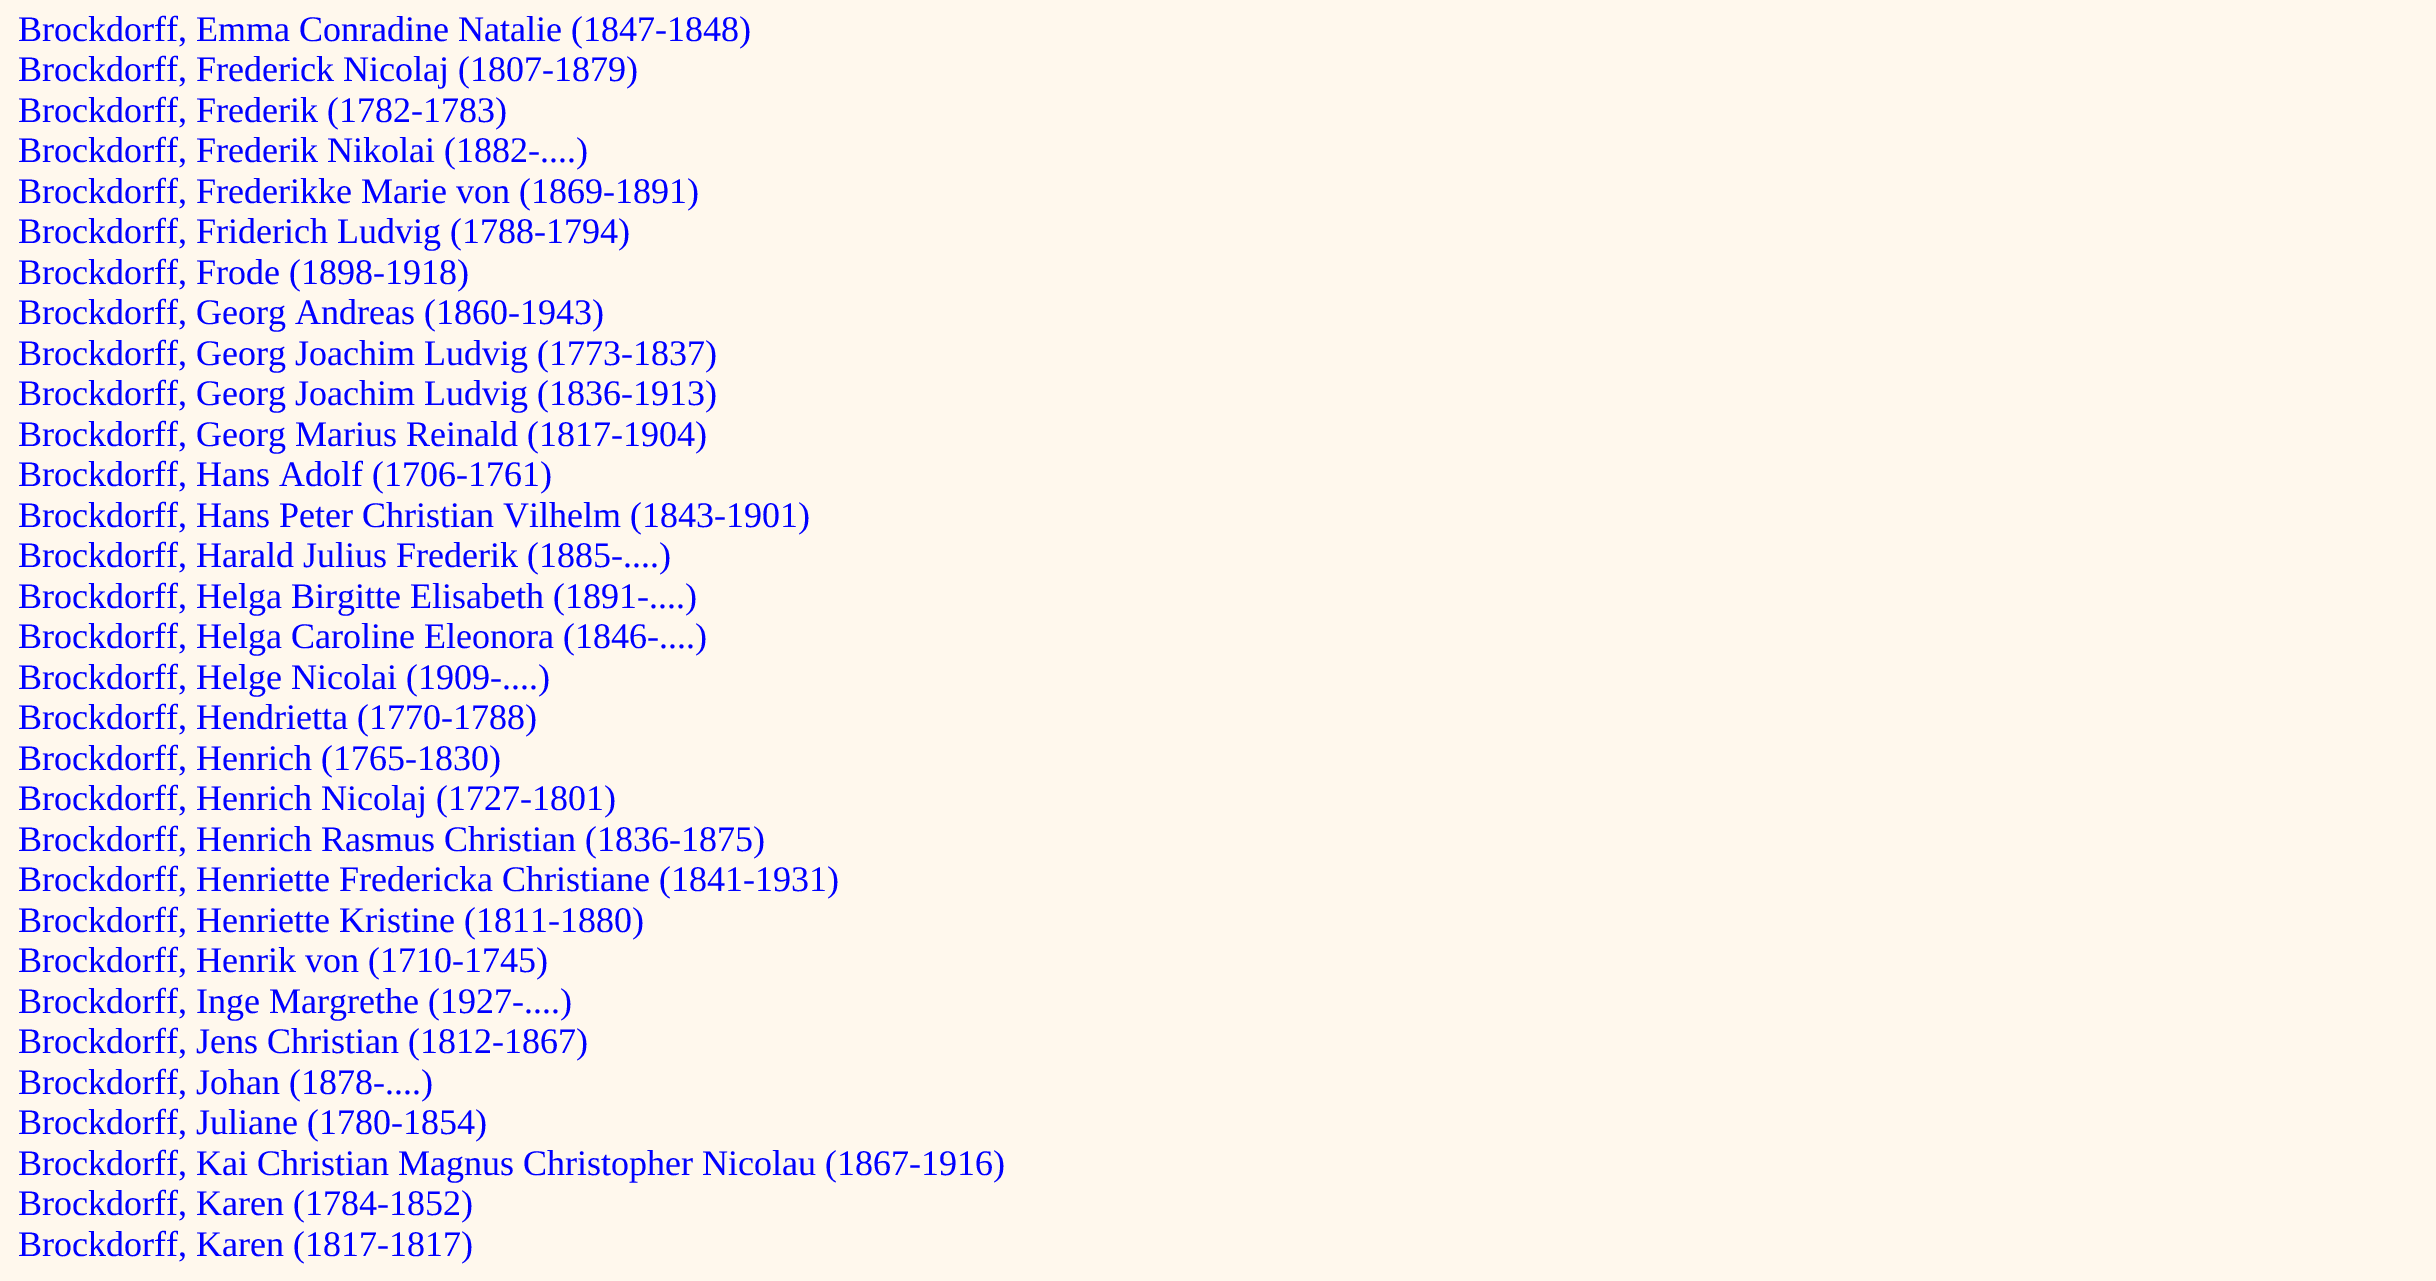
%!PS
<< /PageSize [2436 1281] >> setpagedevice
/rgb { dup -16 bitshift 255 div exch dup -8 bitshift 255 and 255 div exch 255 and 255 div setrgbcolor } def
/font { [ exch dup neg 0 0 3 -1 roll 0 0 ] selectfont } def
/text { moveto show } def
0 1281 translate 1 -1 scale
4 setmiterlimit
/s1 { /LiberationSerif-Regular 36 font 16#0000FF rgb } def
16#FFF8ED rgb
0 0 2436 1281 rectfill
s1
(Brockdorff, Emma Conradine Natalie \(1847-1848\)) 18 41 text
(Brockdorff, Frederick Nicolaj \(1807-1879\)) 18 81 text
(Brockdorff, Frederik \(1782-1783\)) 18 122 text
(Brockdorff, Frederik Nikolai \(1882-....\)) 18 162 text
(Brockdorff, Frederikke Marie von \(1869-1891\)) 18 203 text
(Brockdorff, Friderich Ludvig \(1788-1794\)) 18 243 text
(Brockdorff, Frode \(1898-1918\)) 18 284 text
(Brockdorff, Georg Andreas \(1860-1943\)) 18 324 text
(Brockdorff, Georg Joachim Ludvig \(1773-1837\)) 18 365 text
(Brockdorff, Georg Joachim Ludvig \(1836-1913\)) 18 405 text
(Brockdorff, Georg Marius Reinald \(1817-1904\)) 18 446 text
(Brockdorff, Hans Adolf \(1706-1761\)) 18 486 text
(Brockdorff, Hans Peter Christian Vilhelm \(1843-1901\)) 18 527 text
(Brockdorff, Harald Julius Frederik \(1885-....\)) 18 567 text
(Brockdorff, Helga Birgitte Elisabeth \(1891-....\)) 18 608 text
(Brockdorff, Helga Caroline Eleonora \(1846-....\)) 18 648 text
(Brockdorff, Helge Nicolai \(1909-....\)) 18 689 text
(Brockdorff, Hendrietta \(1770-1788\)) 18 729 text
(Brockdorff, Henrich \(1765-1830\)) 18 770 text
(Brockdorff, Henrich Nicolaj \(1727-1801\)) 18 810 text
(Brockdorff, Henrich Rasmus Christian \(1836-1875\)) 18 851 text
(Brockdorff, Henriette Fredericka Christiane \(1841-1931\)) 18 891 text
(Brockdorff, Henriette Kristine \(1811-1880\)) 18 932 text
(Brockdorff, Henrik von \(1710-1745\)) 18 972 text
(Brockdorff, Inge Margrethe \(1927-....\)) 18 1013 text
(Brockdorff, Jens Christian \(1812-1867\)) 18 1053 text
(Brockdorff, Johan \(1878-....\)) 18 1094 text
(Brockdorff, Juliane \(1780-1854\)) 18 1134 text
(Brockdorff, Kai Christian Magnus Christopher Nicolau \(1867-1916\)) 18 1175 text
(Brockdorff, Karen \(1784-1852\)) 18 1215 text
(Brockdorff, Karen \(1817-1817\)) 18 1256 text
showpage
